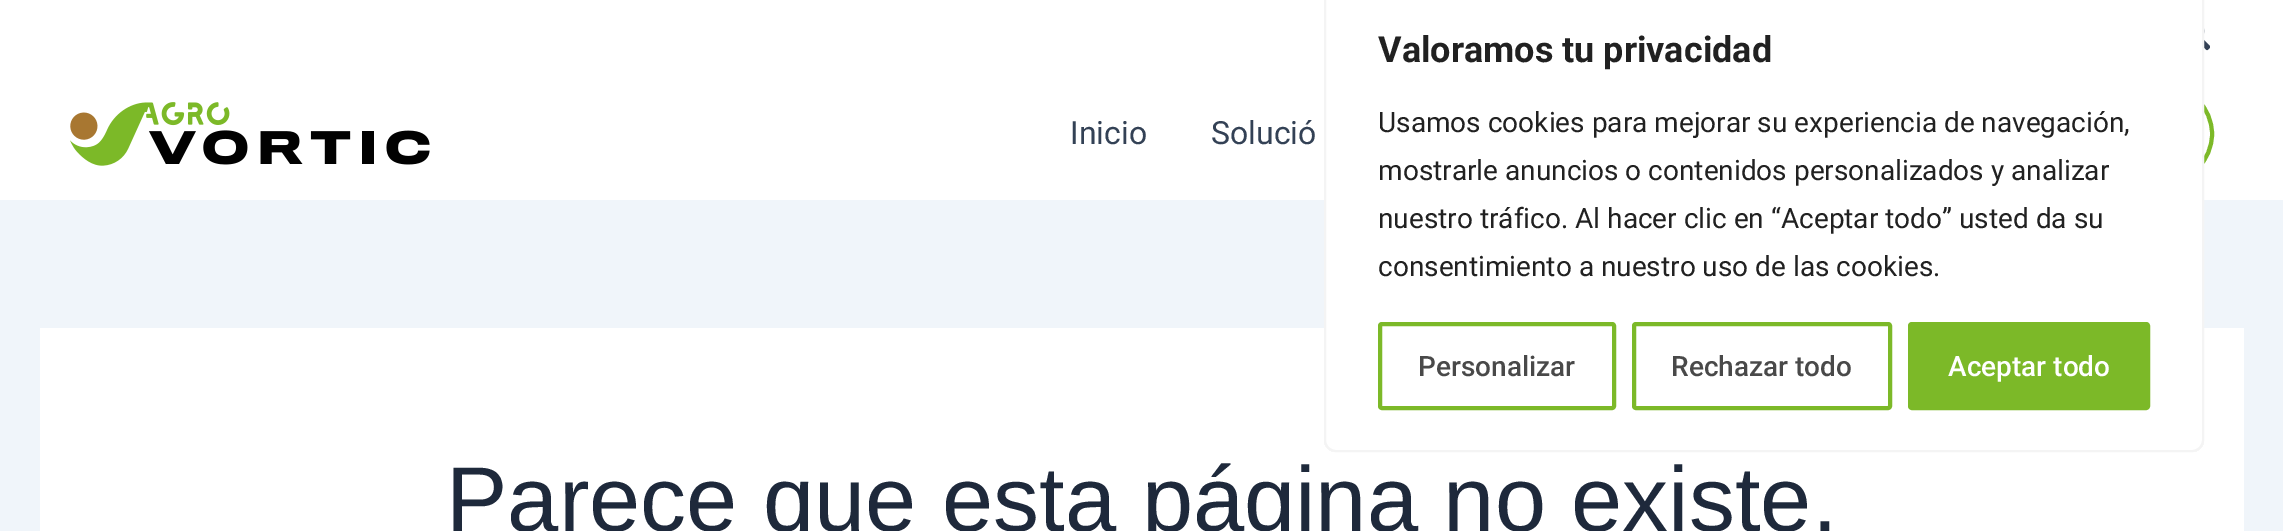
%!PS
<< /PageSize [2283 531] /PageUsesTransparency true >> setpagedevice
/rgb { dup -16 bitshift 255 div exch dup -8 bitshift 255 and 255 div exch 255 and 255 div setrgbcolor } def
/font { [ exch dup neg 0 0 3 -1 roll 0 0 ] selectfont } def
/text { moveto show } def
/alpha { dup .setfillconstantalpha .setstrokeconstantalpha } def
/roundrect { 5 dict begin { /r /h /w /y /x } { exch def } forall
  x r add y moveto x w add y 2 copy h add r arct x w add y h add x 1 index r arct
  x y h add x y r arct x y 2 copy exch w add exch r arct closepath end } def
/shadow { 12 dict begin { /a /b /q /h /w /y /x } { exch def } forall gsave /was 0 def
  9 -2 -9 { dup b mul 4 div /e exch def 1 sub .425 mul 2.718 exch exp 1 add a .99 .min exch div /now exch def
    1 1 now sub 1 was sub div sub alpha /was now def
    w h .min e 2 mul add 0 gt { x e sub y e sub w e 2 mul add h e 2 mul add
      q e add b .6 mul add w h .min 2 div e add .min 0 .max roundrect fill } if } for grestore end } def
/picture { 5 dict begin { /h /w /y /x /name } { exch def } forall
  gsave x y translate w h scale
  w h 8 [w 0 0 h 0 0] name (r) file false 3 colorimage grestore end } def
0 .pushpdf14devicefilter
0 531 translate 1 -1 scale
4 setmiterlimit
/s1 { /Roboto-Bold 36 font 16#212121 rgb } def
/s2 { /Roboto-Regular 28 font 16#212121 rgb } def
/s3 { /Roboto-Medium 28 font 16#494949 rgb } def
/s4 { /Roboto-Medium 28 font 16#FFFFFF rgb } def
/s5 { /Roboto-Regular 32 font 16#334155 rgb } def
/s6 { /LiberationSans-Regular 92 font 16#1E293B rgb } def
16#F0F5FA rgb
0 0 2283 531 rectfill
16#FFFFFF rgb
0 0 2283 200 rectfill
(pic1.raw) 2204 28 6 23 picture
16#7CB928 rgb
4 setlinewidth
1982 86 230 96 48 roundrect stroke
16#FFFFFF rgb
40 328 2204 203 rectfill
gsave
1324 -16 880 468 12 roundrect clip newpath
16#ACABAB rgb
1324 -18 880 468 12 10 0.3 shadow
grestore
1325 -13 878 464 11 roundrect gsave fill grestore
16#F4F4F4 rgb
2 setlinewidth
stroke
s1
(Valoramos tu privacidad) 1378 62 text
s2
(Usamos cookies para mejorar su experiencia de navegación,) 1378 132 text
(mostrarle anuncios o contenidos personalizados y analizar) 1378 180 text
(nuestro tráfico. Al hacer clic en “Aceptar todo” usted da su) 1378 228 text
(consentimiento a nuestro uso de las cookies.) 1378 276 text
16#7CB928 rgb
4 setlinewidth
1380 324 234 84 2 roundrect stroke
s3
(Personalizar) 1418 376 text
16#7CB928 rgb
1634 324 256 84 2 roundrect stroke
s3
(Rechazar todo) 1671 376 text
16#7CB928 rgb
1910 324 238 84 2 roundrect gsave fill grestore
stroke
s4
(Aceptar todo) 1948 376 text
(pic2.raw) 70 102 360 64 picture
s5
(Inicio) 1070 144 text
(Solució) 1211 144 text
s6
(Parece que esta página no existe.) 446 531 text
.poppdf14devicefilter showpage
